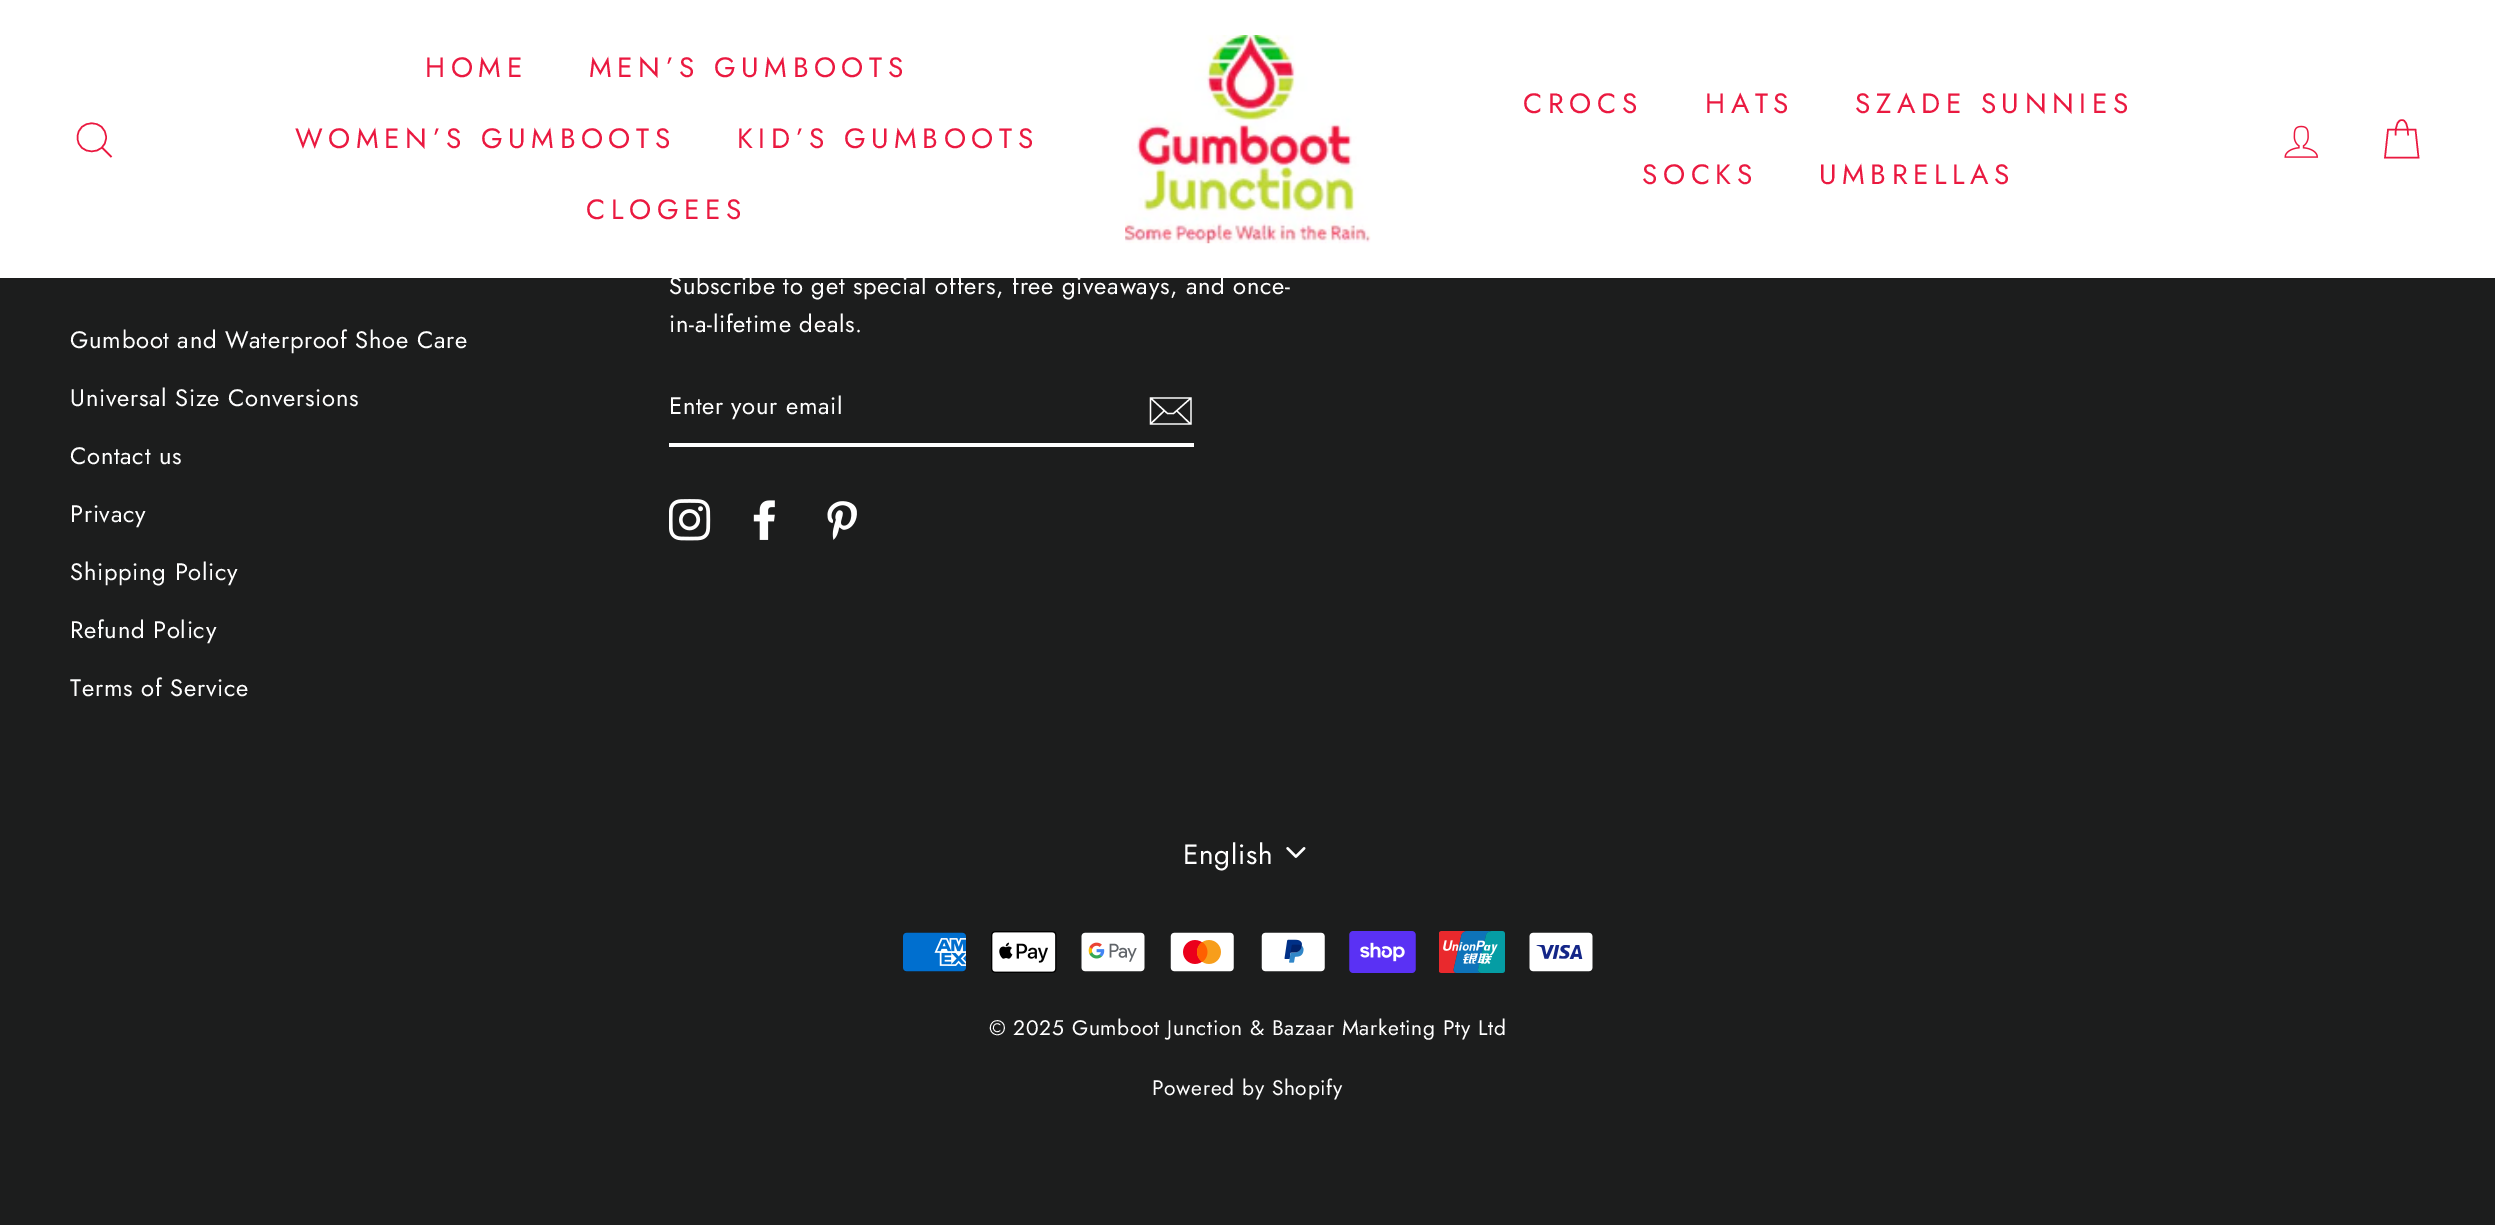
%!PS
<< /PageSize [2495 1225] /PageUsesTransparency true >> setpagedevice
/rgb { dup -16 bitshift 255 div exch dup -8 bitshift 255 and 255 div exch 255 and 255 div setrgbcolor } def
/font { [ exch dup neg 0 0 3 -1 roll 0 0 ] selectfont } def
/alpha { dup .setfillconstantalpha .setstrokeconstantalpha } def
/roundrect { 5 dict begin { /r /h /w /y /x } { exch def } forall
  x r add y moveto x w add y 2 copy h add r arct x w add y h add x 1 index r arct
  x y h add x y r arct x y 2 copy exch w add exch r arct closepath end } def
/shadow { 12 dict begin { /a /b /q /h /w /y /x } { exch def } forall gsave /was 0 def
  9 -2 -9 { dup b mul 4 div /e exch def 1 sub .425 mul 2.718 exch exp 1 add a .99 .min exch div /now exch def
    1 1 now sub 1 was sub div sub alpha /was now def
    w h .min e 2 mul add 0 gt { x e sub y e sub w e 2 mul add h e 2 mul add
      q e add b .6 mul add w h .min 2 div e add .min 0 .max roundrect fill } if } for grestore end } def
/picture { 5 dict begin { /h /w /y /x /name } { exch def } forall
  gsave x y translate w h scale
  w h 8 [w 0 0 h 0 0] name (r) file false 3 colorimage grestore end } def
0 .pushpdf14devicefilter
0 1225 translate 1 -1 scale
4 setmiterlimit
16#1C1D1D rgb
0 0 2495 1225 rectfill
16#000000 rgb
0 0 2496 278 0 1 0.2 shadow
16#FFFFFF rgb
0 0 2495 278 rectfill
16#EA1940 rgb
1.5 setlinewidth
106 137.5 moveto 106 156 77.5 156 77.5 137.5 curveto 77.5 118.5 106 118.5 106 137.5 curveto closepath 111.5 157 moveto 102 147.5 lineto stroke
/Jost-Regular 28 font
425 77 moveto 5.6 0 (HOME) ashow
589 77 moveto 5.6 0 (MEN’S GUMBOOTS) ashow
295 148 moveto 5.6 0 (WOMEN’S GUMBOOTS) ashow
737 148 moveto 5.6 0 (KID’S GUMBOOTS) ashow
586 219 moveto 5.6 0 (CLOGEES) ashow
(pic1.raw) 1125 35 246 209 picture
1523 113 moveto 5.6 0 (CROCS) ashow
1705 113 moveto 5.6 0 (HATS) ashow
1855 113 moveto 5.6 0 (SZADE SUNNIES) ashow
1642 184 moveto 5.6 0 (SOCKS) ashow
1819 184 moveto 5.6 0 (UMBRELLAS) ashow
(pic2.raw) 2284 125 35 33 picture
2395.5 135.5 moveto 2395.5 123.5 2398.5 120 2402 120 curveto 2405 120 2408 123.5 2408 135.5 curveto 2388 129.5 moveto 2415.5 129.5 lineto 2418.5 157.5 lineto 2385 157.5 lineto closepath stroke
/Jost-Regular 23.8 font
16#FFFFFF rgb
70 348 moveto 0.7 0 (Gumboot and Waterproof Shoe Care) ashow
70 406 moveto 0.7 0 (Universal Size Conversions) ashow
70 464 moveto 0.7 0 (Contact us) ashow
70 522 moveto 0.7 0 (Privacy) ashow
70 580 moveto 0.7 0 (Shipping Policy) ashow
70 638 moveto 0.7 0 (Refund Policy) ashow
70 696 moveto 0.7 0 (Terms of Service) ashow
669 294 moveto 0.7 0 (Subscribe to get special offers, free giveaways, and once-) ashow
669 332 moveto 0.7 0 (in-a-lifetime deals.) ashow
669 443 525 4 rectfill
669 414 moveto 0.6 0 (Enter your email) ashow
1.3 setlinewidth
1191 424 moveto 1150.5 424 lineto 1150.5 398 lineto 1191 398 lineto closepath 1150.5 398 moveto 1167.5 413.5 lineto 1173.5 413.5 lineto 1191 398 lineto 1164 411 moveto 1151 423.5 lineto 1190.5 424 moveto 1177 411 lineto stroke
(pic3.raw) 669 499 42 42 picture
(pic4.raw) 753 500 22 40 picture
(pic5.raw) 827 501 30 39 picture
(pic6.raw) 1286 847 20 11 picture
/Jost-Regular 28 font
1183 864 moveto 0.7 0 (English) ashow
(pic7.raw) 903 932 63 40 picture
(pic8.raw) 991 931 66 42 picture
(pic9.raw) 1081 932 64 40 picture
(pic10.raw) 1170 932 64 40 picture
(pic11.raw) 1261 932 64 40 picture
(pic12.raw) 1349 931 67 42 picture
(pic13.raw) 1439 931 66 42 picture
(pic14.raw) 1529 932 64 40 picture
/Jost-Regular 21 font
989 1035 moveto 0.7 0 (© 2025 Gumboot Junction & Bazaar Marketing Pty Ltd) ashow
1152 1095 moveto 0.7 0 (Powered by Shopify) ashow
.poppdf14devicefilter showpage
